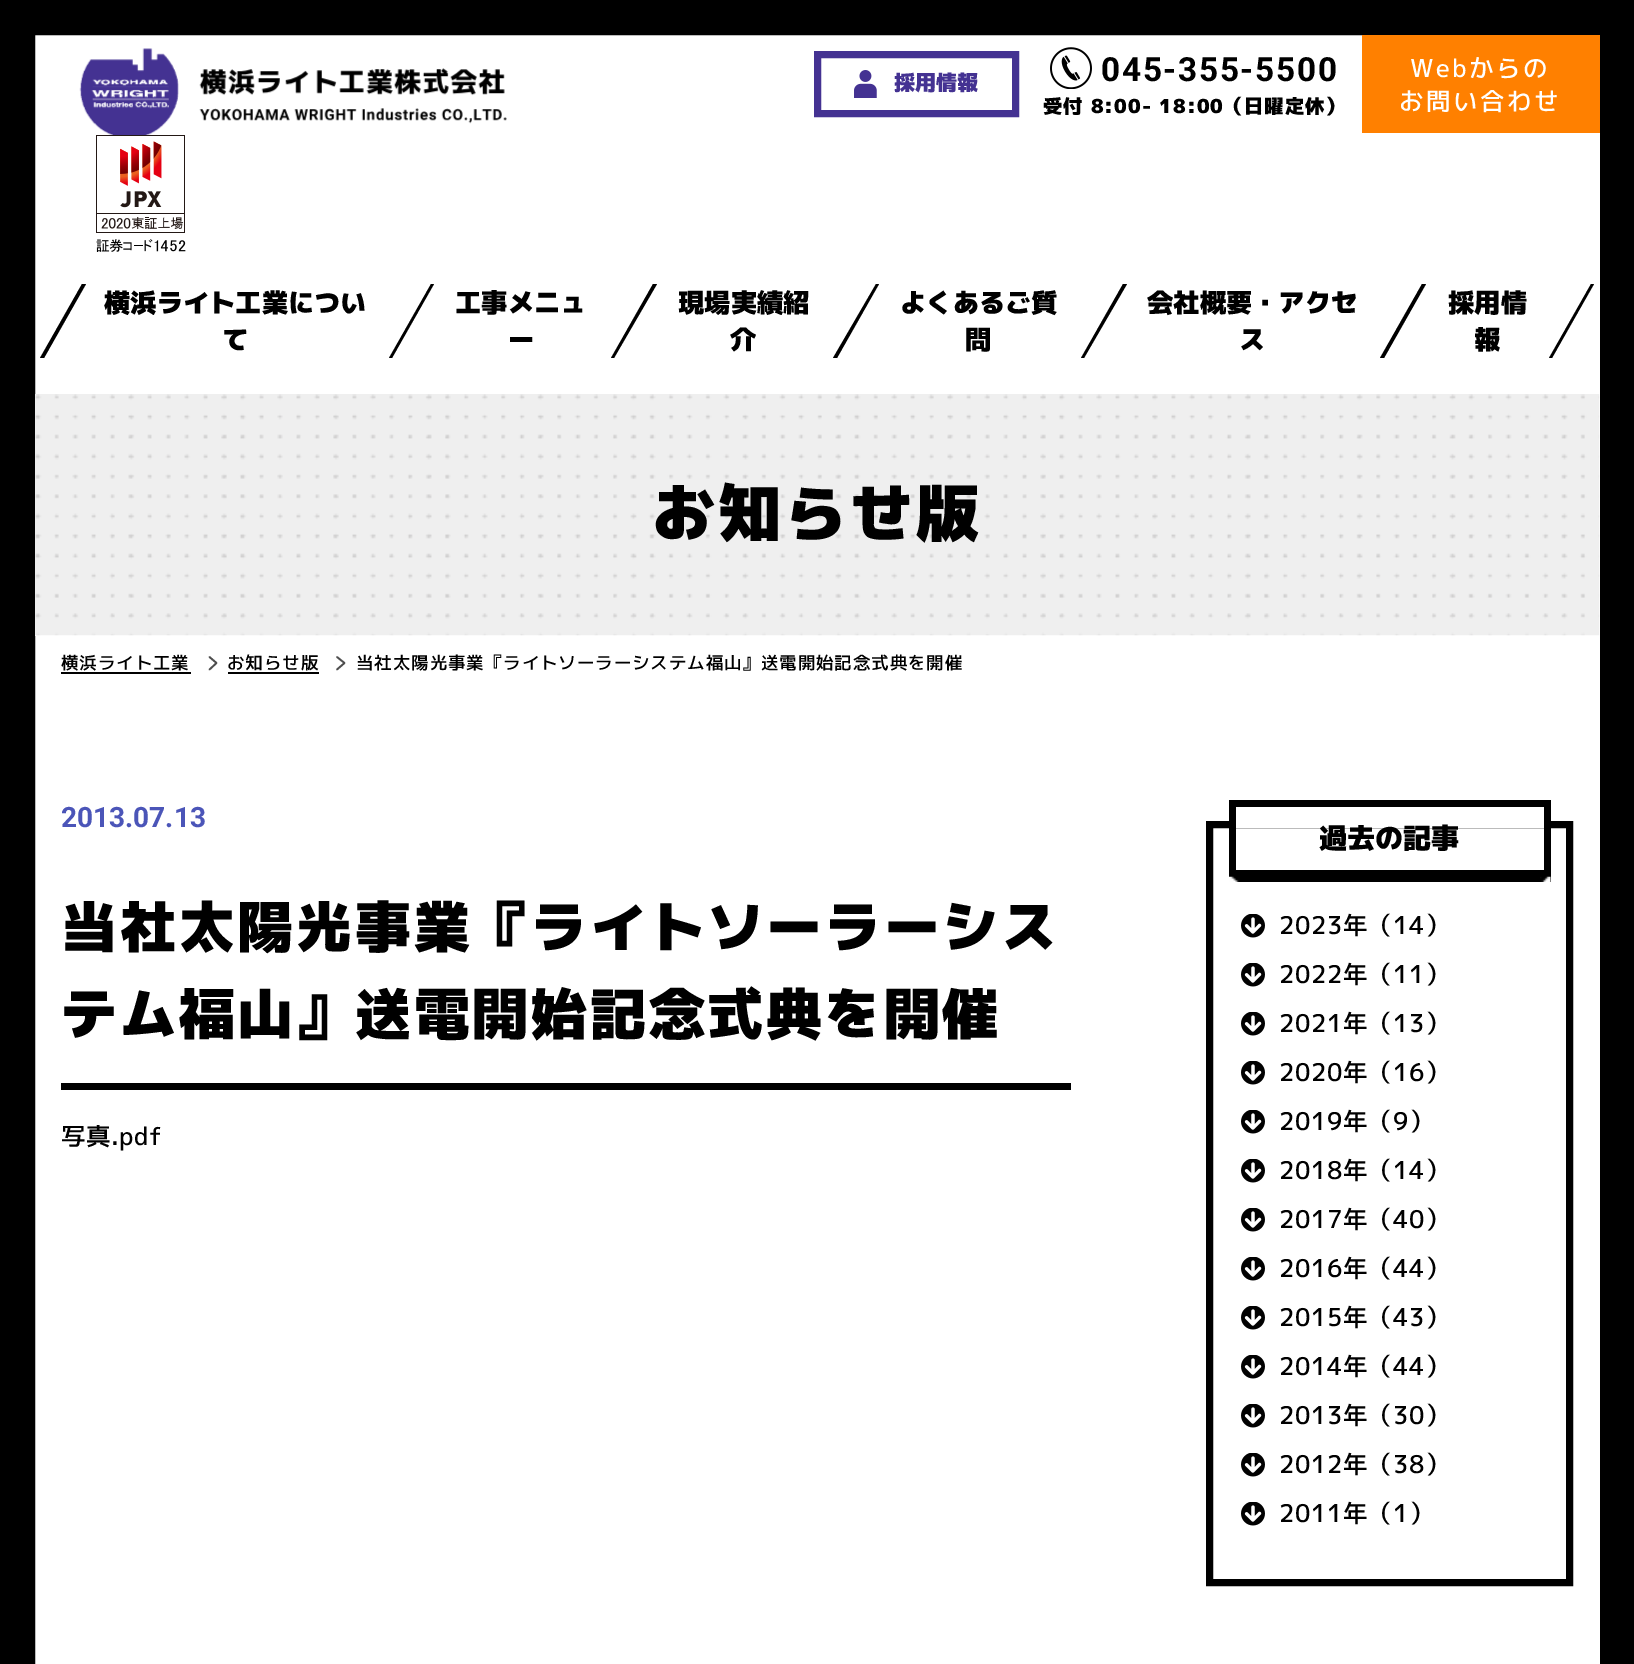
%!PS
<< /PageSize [1634 1664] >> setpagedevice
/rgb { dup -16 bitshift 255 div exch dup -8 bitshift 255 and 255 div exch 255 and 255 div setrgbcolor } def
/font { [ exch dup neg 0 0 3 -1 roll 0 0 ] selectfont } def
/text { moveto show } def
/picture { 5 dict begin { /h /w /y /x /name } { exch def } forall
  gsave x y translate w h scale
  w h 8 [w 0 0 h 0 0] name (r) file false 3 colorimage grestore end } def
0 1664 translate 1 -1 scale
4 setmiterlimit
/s1 { /MPLUS1p-Black 21 font 16#443292 rgb } def
/s2 { /MPLUS1p-Black 26.25 font 16#000000 rgb } def
/s3 { /Roboto-Bold 28 font 16#4B55B8 rgb } def
/s4 { /MPLUS1p-Black 28 font 16#000000 rgb } def
16#FFFFFF rgb
0 0 1634 1664 rectfill
16#000000 rgb
35 setlinewidth
17.5 17.5 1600 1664 rectstroke
(pic1.raw) 79 48 428 87 picture
(pic2.raw) 96 135 90 117 picture
16#443292 rgb
7 setlinewidth
817.5 54.5 198 59 rectstroke
(pic3.raw) 854 70 23 28 picture
s1
(採用情報) 894 90 text
(pic4.raw) 1050 47 42 42 picture
/Roboto-Bold 33.25 font
16#000000 rgb
1101 81 moveto 1.7 0 (045-355-5500) ashow
/MPLUS1p-Black 19.25 font
1043 113 moveto 1 0 (受付 8:00- 18:00（日曜定休）) ashow
16#FF8000 rgb
1362 35 238 98 rectfill
/MPLUS1p-Medium 24.5 font
16#FFFFFF rgb
1410 77 moveto 2.5 0 (Webからの) ashow
1399 110 moveto 2.5 0 (お問い合わせ) ashow
16#000000 rgb
82 284 moveto 86 284 lineto 44 358 lineto 40 358 lineto closepath fill
s2
(横浜ライト工業につい) 104 312 text
(て) 222 349 text
431 284 moveto 434 284 lineto 392 358 lineto 389 358 lineto closepath fill
(工事メニュ) 455 312 text
(ー) 508 349 text
653 284 moveto 657 284 lineto 614 358 lineto 611 358 lineto closepath fill
(現場実績紹) 678 312 text
(介) 730 349 text
876 284 moveto 879 284 lineto 837 358 lineto 833 358 lineto closepath fill
(よくあるご質) 900 312 text
(問) 965 349 text
1123 284 moveto 1127 284 lineto 1084 358 lineto 1081 358 lineto closepath fill
(会社概要・アクセ) 1147 312 text
(ス) 1239 349 text
1422 284 moveto 1426 284 lineto 1384 358 lineto 1380 358 lineto closepath fill
(採用情) 1448 312 text
1591 284 moveto 1594 284 lineto 1552 358 lineto 1549 358 lineto closepath fill
(報) 1474 349 text
(pic5.raw) 35 394 1565 242 picture
/MPLUS1p-Black 63 font
652 536 moveto 3 0 (お知らせ版) ashow
/MPLUS1p-Medium 17.5 font
61 669 moveto 0.9 0 (横浜ライト工業) ashow
61 672 130 2 rectfill
16#4E4E4E rgb
1.7 setlinewidth
1 setlinecap
1 setlinejoin
209.5 657 moveto 216.5 663 lineto 209.5 669.5 lineto stroke
16#000000 rgb
227 669 moveto 0.9 0 (お知らせ版) ashow
228 672 91 2 rectfill
16#4E4E4E rgb
337 657 moveto 344.5 663 lineto 337 669.5 lineto stroke
16#000000 rgb
356 669 moveto 0.9 0 (当社太陽光事業『ライトソーラーシステム福山』送電開始記念式典を開催) ashow
s3
(2013.07.13) 61 827 text
16#000000 rgb
61 1083 1010 7 rectfill
/MPLUS1p-Black 56 font
61 947 moveto 2.75 0 (当社太陽光事業『ライトソーラーシス) ashow
61 1034 moveto 2.75 0 (テム福山』送電開始記念式典を開催) ashow
/MPLUS1p-Medium 24.5 font
61 1145 moveto 0.5 0 (写真.pdf) ashow
7 setlinewidth
0 setlinecap
0 setlinejoin
1209.5 824.5 360 758 rectstroke
16#FFFFFF rgb
1236 821 308 7 rectfill
16#000000 rgb
1229 800 322 7 rectfill
1544 800 7 70 rectfill
1236 870 315 12 rectfill
1229 800 7 82 rectfill
s4
(過去の記事) 1319 848 text
(pic6.raw) 1229 876 10 6 picture
(pic7.raw) 1540 876 11 6 picture
(pic8.raw) 1241 914 24 24 picture
/MPLUS1p-Medium 24.5 font
1279 934 moveto 0.5 0 (2023年（14）) ashow
(pic8.raw) 1241 963 24 24 picture
1279 983 moveto 0.5 0 (2022年（11）) ashow
(pic8.raw) 1241 1012 24 24 picture
1279 1032 moveto 0.5 0 (2021年（13）) ashow
(pic8.raw) 1241 1061 24 24 picture
1279 1081 moveto 0.5 0 (2020年（16）) ashow
(pic8.raw) 1241 1110 24 24 picture
1279 1130 moveto 0.5 0 (2019年（9）) ashow
(pic8.raw) 1241 1159 24 24 picture
1279 1179 moveto 0.5 0 (2018年（14）) ashow
(pic8.raw) 1241 1208 24 24 picture
1279 1228 moveto 0.5 0 (2017年（40）) ashow
(pic8.raw) 1241 1257 24 24 picture
1279 1277 moveto 0.5 0 (2016年（44）) ashow
(pic8.raw) 1241 1306 24 24 picture
1279 1326 moveto 0.5 0 (2015年（43）) ashow
(pic8.raw) 1241 1355 24 24 picture
1279 1375 moveto 0.5 0 (2014年（44）) ashow
(pic8.raw) 1241 1404 24 24 picture
1279 1424 moveto 0.5 0 (2013年（30）) ashow
(pic8.raw) 1241 1453 24 24 picture
1279 1473 moveto 0.5 0 (2012年（38）) ashow
(pic8.raw) 1241 1502 24 24 picture
1279 1522 moveto 0.5 0 (2011年（1）) ashow
showpage
